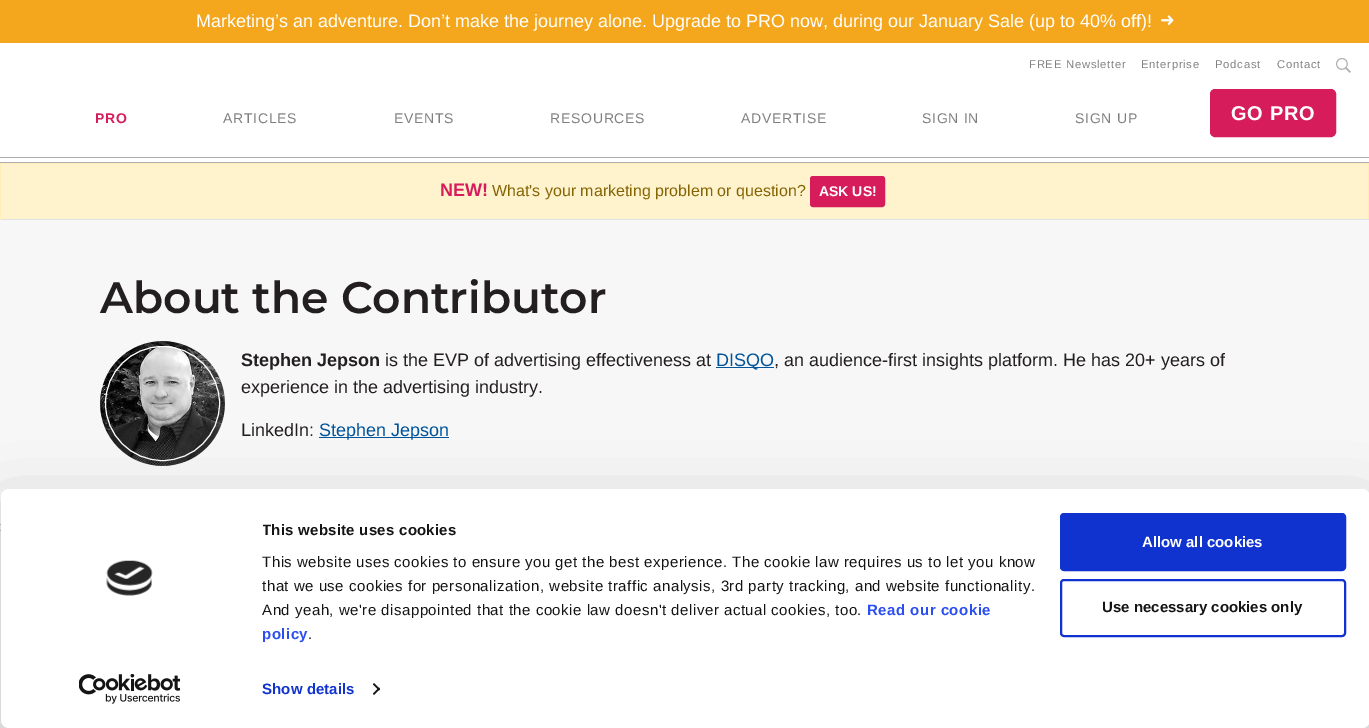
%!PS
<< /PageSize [1369 728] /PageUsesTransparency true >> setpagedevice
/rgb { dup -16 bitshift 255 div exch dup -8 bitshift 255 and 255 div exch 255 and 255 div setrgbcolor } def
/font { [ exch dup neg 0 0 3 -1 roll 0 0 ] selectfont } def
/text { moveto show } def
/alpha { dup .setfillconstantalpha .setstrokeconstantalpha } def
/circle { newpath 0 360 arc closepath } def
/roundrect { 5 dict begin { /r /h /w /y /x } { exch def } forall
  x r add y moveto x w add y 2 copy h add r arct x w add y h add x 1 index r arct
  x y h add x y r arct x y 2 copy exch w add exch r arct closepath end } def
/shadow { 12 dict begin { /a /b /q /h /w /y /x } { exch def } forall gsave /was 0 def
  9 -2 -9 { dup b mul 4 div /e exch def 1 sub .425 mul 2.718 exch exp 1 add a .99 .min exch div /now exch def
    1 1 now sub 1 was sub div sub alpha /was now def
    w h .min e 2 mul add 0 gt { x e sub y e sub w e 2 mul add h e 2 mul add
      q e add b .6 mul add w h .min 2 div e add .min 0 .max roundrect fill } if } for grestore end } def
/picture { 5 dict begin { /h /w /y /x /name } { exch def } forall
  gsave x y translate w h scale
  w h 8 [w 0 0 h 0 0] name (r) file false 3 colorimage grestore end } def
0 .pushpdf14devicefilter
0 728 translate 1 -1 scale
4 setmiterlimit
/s1 { /LiberationSans-Regular 18 font 16#FFFFFF rgb } def
/s2 { /LiberationSans-Bold 18 font 16#D61C5B rgb } def
/s3 { /LiberationSans-Regular 16 font 16#856404 rgb } def
/s4 { /LiberationSans-Bold 14 font 16#FFFFFF rgb } def
/s5 { /Montserrat-SemiBold 44 font 16#231F20 rgb } def
/s6 { /LiberationSans-Bold 18 font 16#231F20 rgb } def
/s7 { /LiberationSans-Regular 18 font 16#231F20 rgb } def
/s8 { /LiberationSans-Regular 18 font 16#00549A rgb } def
/s9 { /LiberationSans-Bold 15 font 16#FFFFFF rgb } def
/s10 { /LiberationSans-Bold 15 font 16#141414 rgb } def
16#FFFFFF rgb
0 0 1369 728 rectfill
16#F4A71D rgb
0 0 1369 43 rectfill
s1
(Marketing’s an adventure. Don’t make the journey alone. Upgrade to PRO now, during our January Sale \(up to 40% off\)!) 196 27 text
(pic1.raw) 1161 15 13 11 picture
16#AFADB2 rgb
0 162 1369 1 rectfill
/LiberationSans-Regular 11.25 font
16#808080 rgb
1029 68 moveto 0.75 0 (FREE Newsletter) ashow
1141 68 moveto 0.75 0 (Enterprise) ashow
1215 68 moveto 0.75 0 (Podcast) ashow
1277 68 moveto 0.75 0 (Contact) ashow
(pic2.raw) 1336 58 15 15 picture
/LiberationSans-Bold 14 font
16#D61C5B rgb
95 123 moveto 0.75 0 (PRO) ashow
/LiberationSans-Regular 14 font
16#808080 rgb
223 123 moveto 0.75 0 (ARTICLES) ashow
394 123 moveto 0.75 0 (EVENTS) ashow
550 123 moveto 0.75 0 (RESOURCES) ashow
741 123 moveto 0.75 0 (ADVERTISE) ashow
922 123 moveto 0.75 0 (SIGN IN) ashow
1075 123 moveto 0.75 0 (SIGN UP) ashow
16#D61C5B rgb
1210.5 89.5 125 47 4.5 roundrect gsave fill grestore
stroke
/LiberationSans-Bold 20 font
16#FFFFFF rgb
1231 120 moveto 0.75 0 (GO PRO) ashow
16#AFADB2 rgb
0 157 1369 1 rectfill
16#FFF3CD rgb
1 164 1367 55 rectfill
16#FFEEBA rgb
0 163 1369 1 rectfill
1368 163 1 57 rectfill
16#DEE2E6 rgb
0 219 1369 1 rectfill
16#FFEEBA rgb
0 163 1 57 rectfill
s2
(NEW!) 440 196 text
s3
(What's your marketing problem or question?) 492 196 text
16#D61C5B rgb
810.5 176.5 74 30 2.5 roundrect gsave fill grestore
stroke
s4
(ASK US!) 819 196 text
16#F7F7F8 rgb
0 220 1369 304 rectfill
s5
(About the Contributor) 100 313 text
(pic3.raw) 100 341 125 125 picture
16#FFFFFF rgb
162.5 403.5 57 circle stroke
s6
(Stephen Jepson) 241 366 text
s7
(is the EVP of advertising effectiveness at) 385 366 text
16#00549A rgb
716 367 58 1 rectfill
(DISQO) 716 366 text
s7
(, an audience-first insights platform. He has 20+ years of) 774 366 text
(experience in the advertising industry.) 241 393 text
(LinkedIn:) 241 436 text
16#00549A rgb
319 437 130 1 rectfill
(Stephen Jepson) 319 436 text
16#CAC6C1 rgb
0 524 1 1 rectfill
0 530 1 1 rectfill
16#000000 rgb
1 519 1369 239 8 35 0.3 shadow
16#FFFFFF rgb
1 489 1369 239 8 roundrect fill
(pic4.raw) 106 560 47 36 picture
(pic5.raw) 79 674 101 30 picture
gsave
263 519 791 127 rectclip
/LiberationSans-Bold 15 font
16#141414 rgb
262 535 moveto 0.25 0 (This website uses cookies) ashow
grestore
/LiberationSans-Regular 15 font
16#141414 rgb
262 567 moveto 0.5 0 (This website uses cookies to ensure you get the best experience. The cookie law requires us to let you know) ashow
262 591 moveto 0.5 0 (that we use cookies for personalization, website traffic analysis, 3rd party tracking, and website functionality.) ashow
262 615 moveto 0.5 0 (And yeah, we're disappointed that the cookie law doesn't deliver actual cookies, too.) ashow
/LiberationSans-Bold 15 font
16#2A4EEF rgb
867 615 moveto 0.5 0 (Read our cookie) ashow
262 639 moveto 0.5 0 (policy) ashow
/LiberationSans-Regular 15 font
16#141414 rgb
308 639 moveto 0.5 0 (.) ashow
/LiberationSans-Bold 15 font
16#1032CF rgb
262 694 moveto 0.1 0 (Show details) ashow
16#141414 rgb
374 683 moveto 380 689 lineto 379 690.5 lineto 373 684.5 lineto closepath fill
379 687.5 moveto 380 689 lineto 374 695 lineto 373 693.5 lineto closepath fill
16#1032CF rgb
1061 514 284 56 3 roundrect gsave fill grestore
2 setlinewidth
stroke
s9
(Allow all cookies) 1142 547 text
16#1032CF rgb
1061 580 284 56 3 roundrect stroke
s10
(Use necessary cookies only) 1102 612 text
.poppdf14devicefilter showpage
